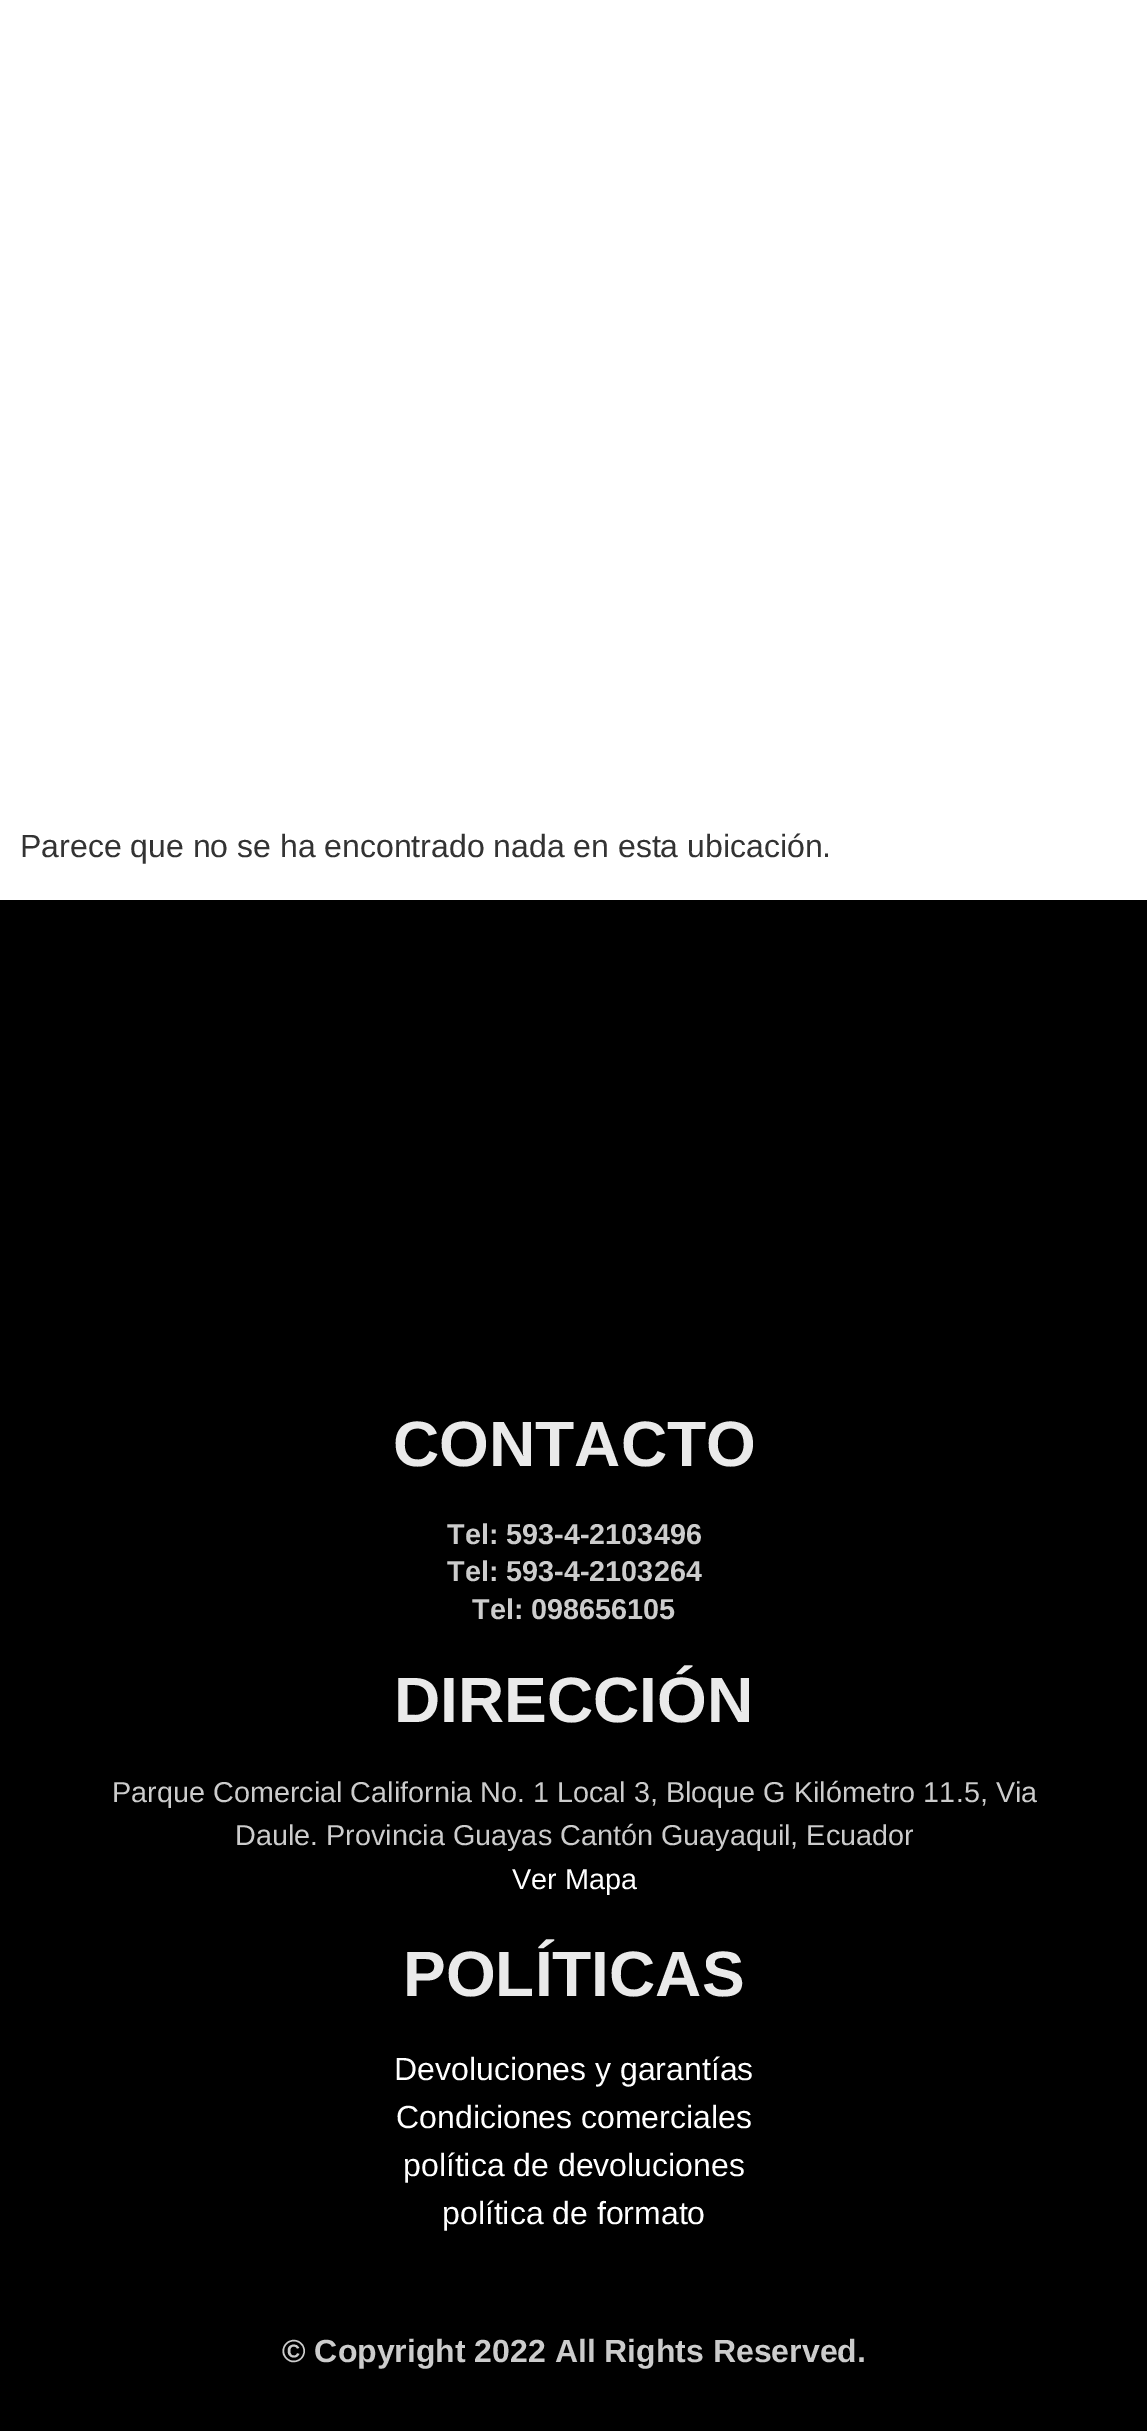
%!PS
<< /PageSize [1147 2431] >> setpagedevice
/rgb { dup -16 bitshift 255 div exch dup -8 bitshift 255 and 255 div exch 255 and 255 div setrgbcolor } def
/font { [ exch dup neg 0 0 3 -1 roll 0 0 ] selectfont } def
/text { moveto show } def
0 2431 translate 1 -1 scale
4 setmiterlimit
/s1 { /LiberationSans-Regular 32 font 16#333333 rgb } def
/s2 { /LiberationSans-Bold 64 font 16#EAEAEA rgb } def
/s3 { /LiberationSans-Bold 28.8 font 16#CCCCCC rgb } def
/s4 { /LiberationSans-Regular 28.8 font 16#CCCCCC rgb } def
/s5 { /LiberationSans-Regular 28.8 font 16#FFFFFF rgb } def
/s6 { /LiberationSans-Regular 32 font 16#FFFFFF rgb } def
/s7 { /LiberationSans-Bold 32 font 16#CCCCCC rgb } def
16#FFFFFF rgb
0 0 1147 2431 rectfill
s1
(Parece que no se ha encontrado nada en esta ubicación.) 20 857 text
16#000000 rgb
0 900 1147 1531 rectfill
s2
(CONTACTO) 393 1466 text
s3
(Tel: 593-4-2103496) 447 1544 text
(Tel: 593-4-2103264) 447 1581 text
(Tel: 098656105) 472 1619 text
s2
(DIRECCIÓN) 394 1722 text
s4
(Parque Comercial California No. 1 Local 3, Bloque G Kilómetro 11.5, Via) 112 1802 text
(Daule. Provincia Guayas Cantón Guayaquil, Ecuador) 235 1845 text
s5
(Ver Mapa) 512 1889 text
s2
(POLÍTICAS) 403 1996 text
s6
(Devoluciones y garantías) 394 2080 text
(Condiciones comerciales) 396 2128 text
(política de devoluciones) 403 2176 text
(política de formato) 442 2224 text
s7
(© Copyright 2022 All Rights Reserved.) 282 2362 text
showpage
